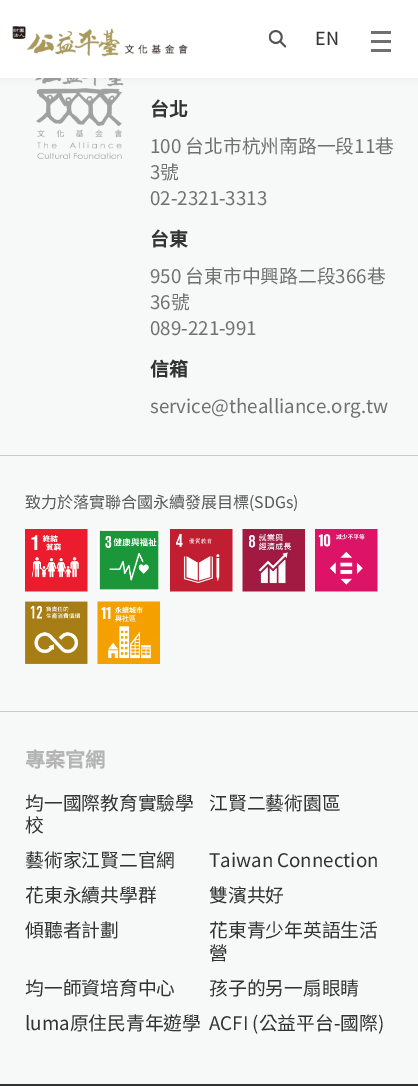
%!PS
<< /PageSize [418 1086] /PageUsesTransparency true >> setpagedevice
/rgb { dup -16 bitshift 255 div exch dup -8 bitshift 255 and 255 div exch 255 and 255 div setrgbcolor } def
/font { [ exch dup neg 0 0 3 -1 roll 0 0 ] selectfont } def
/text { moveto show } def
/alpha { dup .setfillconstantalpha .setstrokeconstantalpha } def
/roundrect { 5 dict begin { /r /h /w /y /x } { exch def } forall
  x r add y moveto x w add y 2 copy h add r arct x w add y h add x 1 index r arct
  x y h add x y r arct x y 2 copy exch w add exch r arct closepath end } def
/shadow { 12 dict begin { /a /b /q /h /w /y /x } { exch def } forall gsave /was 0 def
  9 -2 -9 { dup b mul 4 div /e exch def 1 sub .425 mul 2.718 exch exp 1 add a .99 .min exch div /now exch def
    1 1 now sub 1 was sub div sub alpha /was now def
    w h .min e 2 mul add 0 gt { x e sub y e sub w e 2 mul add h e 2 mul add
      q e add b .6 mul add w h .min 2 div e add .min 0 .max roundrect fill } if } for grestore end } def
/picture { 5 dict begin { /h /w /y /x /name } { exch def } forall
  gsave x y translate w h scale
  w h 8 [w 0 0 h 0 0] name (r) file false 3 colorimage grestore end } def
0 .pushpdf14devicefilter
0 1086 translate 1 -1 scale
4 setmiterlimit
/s1 { /NotoSansTC-Regular 18 font 16#333333 rgb } def
/s2 { /NotoSansTC-Bold 18.75 font 16#333333 rgb } def
/s3 { /NotoSansTC-Regular 18.75 font 16#727171 rgb } def
/s4 { /NotoSansTC-Regular 16 font 16#595757 rgb } def
/s5 { /NotoSansTC-Bold 20 font 16#B4B4B4 rgb } def
/s6 { /NotoSansTC-Regular 18.75 font 16#333333 rgb } def
16#F7F8F8 rgb
0 0 418 1086 rectfill
(pic3.raw) 35 78 89 81 picture
16#000000 rgb
0 0 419 78 0 5 0.05 shadow
16#FFFFFF rgb
0 0 418 78 rectfill
(pic1.raw) 12 26 176 31 picture
(pic2.raw) 268 30 19 18 picture
s1
(EN) 315 45 text
16#707070 rgb
371 49 20 3 rectfill
371 31 20 3 rectfill
371 40 20 3 rectfill
s2
(台北) 150 116 text
s3
(100 台北市杭州南路一段11巷) 150 153 text
(3號) 150 179 text
(02-2321-3313) 150 205 text
s2
(台東) 150 246 text
s3
(950 台東市中興路二段366巷) 150 283 text
(36號) 150 309 text
(089-221-991) 150 335 text
s2
(信箱) 150 376 text
s3
(service@thealliance.org.tw) 150 413 text
16#CACACA rgb
0 455 418 1 rectfill
s4
(致力於落實聯合國永續發展目標\(SDGs\)) 25 508 text
16#F5F5F5 rgb
87 529 1 62 rectfill
(pic4.raw) 25 529 63 63 picture
(pic5.raw) 97 529 63 63 picture
232 529 1 62 rectfill
(pic6.raw) 170 529 63 63 picture
(pic7.raw) 242 529 63 63 picture
377 529 1 62 rectfill
(pic8.raw) 315 529 63 63 picture
25 601 63 63 rectfill
(pic9.raw) 25 601 63 63 picture
98 601 62 1 rectfill
(pic10.raw) 97 601 63 63 picture
16#CACACA rgb
0 711 418 1 rectfill
s5
(專案官網) 25 767 text
s6
(均一國際教育實驗學) 25 810 text
(校) 25 832 text
(江賢二藝術園區) 209 810 text
(藝術家江賢二官網) 25 867 text
(Taiwan Connection) 209 867 text
(花東永續共學群) 25 902 text
(雙濱共好) 209 902 text
(傾聽者計劃) 25 937 text
(花東青少年英語生活) 209 937 text
(營) 209 960 text
(均一師資培育中心) 25 995 text
(孩子的另一扇眼睛) 209 995 text
(luma原住民青年遊學) 25 1030 text
(ACFI \(公益平台-國際\)) 209 1030 text
16#313131 rgb
0 1084 418 2 rectfill
.poppdf14devicefilter showpage
